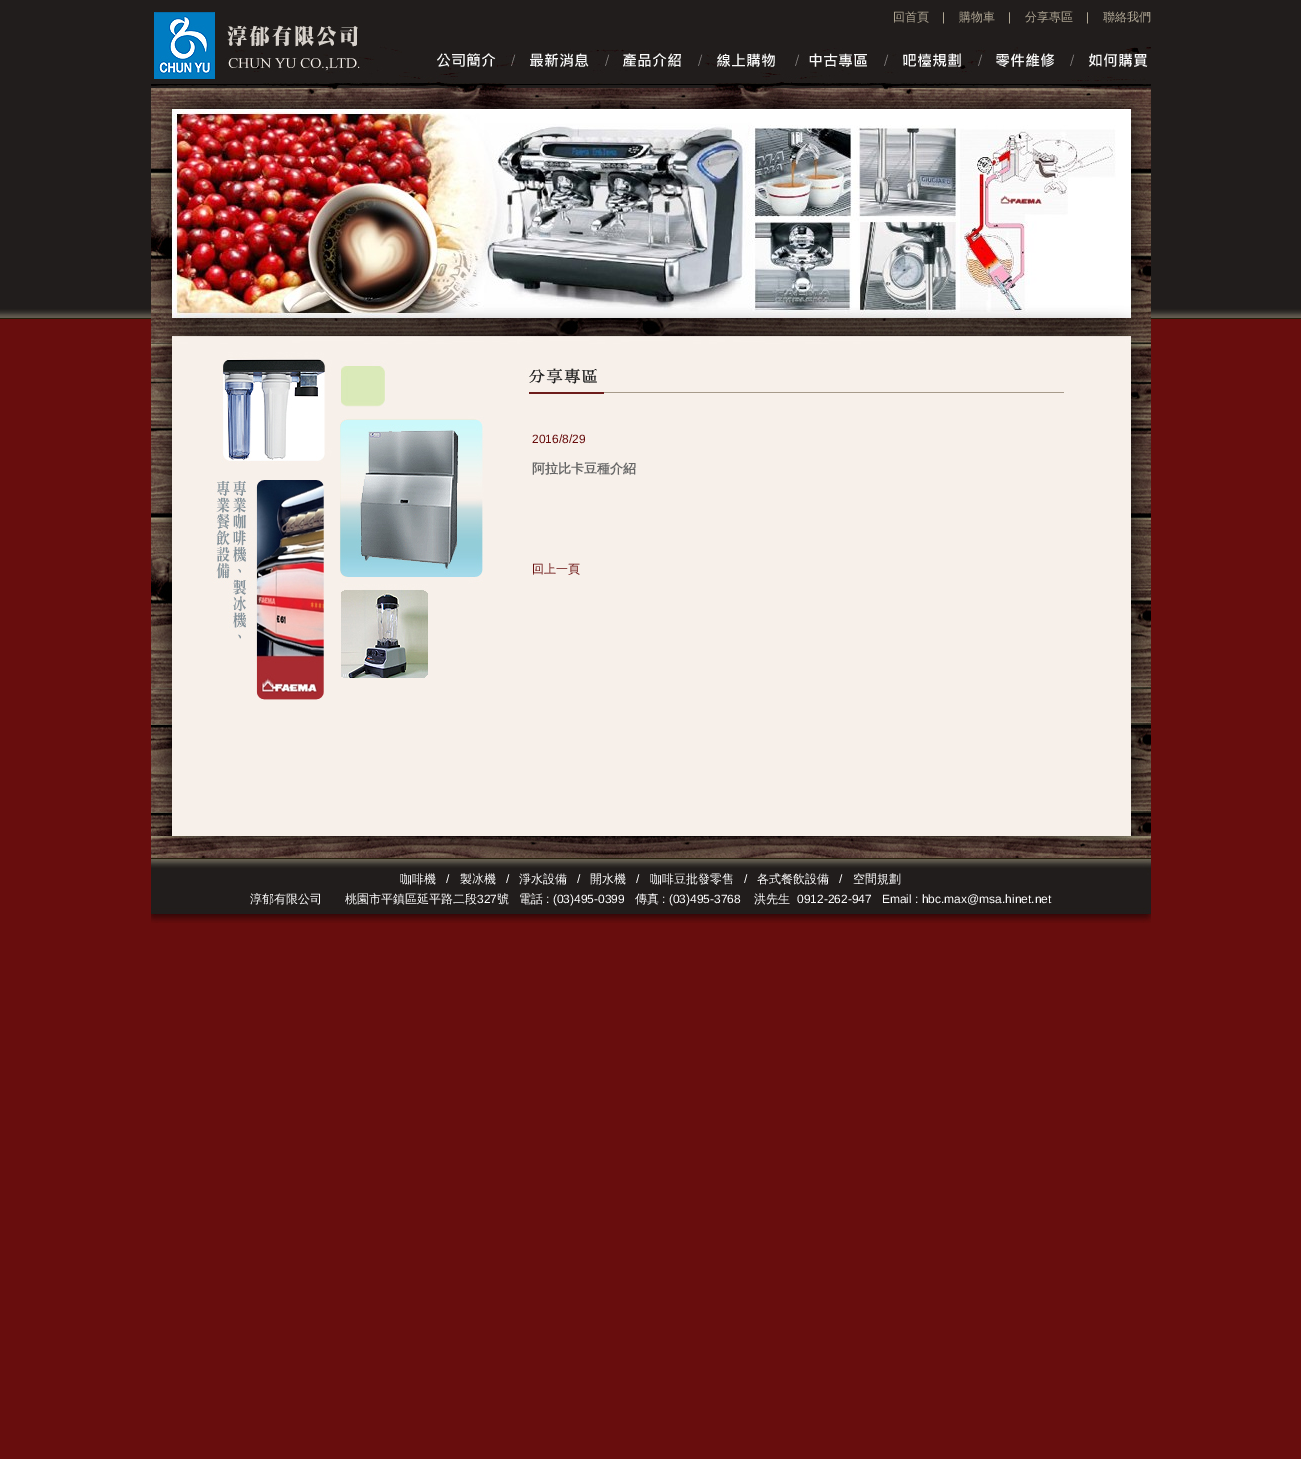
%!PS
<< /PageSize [1301 1459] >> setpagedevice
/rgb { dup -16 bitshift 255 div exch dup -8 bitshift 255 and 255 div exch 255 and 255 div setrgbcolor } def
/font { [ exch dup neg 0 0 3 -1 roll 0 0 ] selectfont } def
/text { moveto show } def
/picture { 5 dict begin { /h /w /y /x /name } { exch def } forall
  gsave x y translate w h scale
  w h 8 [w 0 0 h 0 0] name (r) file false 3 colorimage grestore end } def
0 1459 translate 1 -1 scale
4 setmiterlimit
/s1 { /WenQuanYiZenHei-Medium 12 font 16#B0A794 rgb } def
/s2 { /LiberationSans-Regular 12 font 16#B0A794 rgb } def
/s3 { /LiberationSans-Regular 12 font 16#680D0D rgb } def
/s4 { /WenQuanYiZenHei-Bold 13 font 16#666666 rgb } def
/s5 { /WenQuanYiZenHei-Medium 12 font 16#680D0D rgb } def
/s6 { /WenQuanYiZenHei-Medium 12 font 16#FFFFFF rgb } def
/s7 { /LiberationSans-Regular 12 font 16#FFFFFF rgb } def
16#680D0D rgb
0 0 1301 1459 rectfill
(pic1.raw) 0 0 1301 319 picture
(pic2.raw) 151 11 251 77 picture
s1
(回首頁) 893 21 text
s2
(|) 942 21 text
s1
(購物車) 959 21 text
s2
(|) 1008 21 text
s1
(分享專區) 1025 21 text
s2
(|) 1086 21 text
s1
(聯絡我們) 1103 21 text
(pic3.raw) 402 53 109 35 picture
(pic4.raw) 511 49 94 36 picture
(pic5.raw) 605 49 93 36 picture
(pic6.raw) 698 53 97 35 picture
(pic7.raw) 795 48 89 40 picture
(pic8.raw) 884 50 94 38 picture
(pic9.raw) 978 47 92 39 picture
(pic10.raw) 1070 47 81 41 picture
(pic11.raw) 151 88 1000 21 picture
(pic12.raw) 151 689 21 147 picture
(pic13.raw) 151 109 21 580 picture
(pic14.raw) 172 109 959 209 picture
(pic15.raw) 172 318 959 18 picture
16#F7F0EA rgb
172 394 959 442 rectfill
(pic16.raw) 172 336 345 364 picture
(pic17.raw) 517 336 614 58 picture
s3
(2016/8/29) 532 443 text
s4
(阿拉比卡豆種介紹) 532 473 text
s5
(回上一頁) 532 573 text
(pic18.raw) 1131 689 20 147 picture
(pic19.raw) 1131 109 20 580 picture
(pic20.raw) 151 836 1000 23 picture
(pic21.raw) 151 859 1000 64 picture
s6
(咖啡機) 400 883 text
s7
(/) 446 883 text
s6
(製冰機) 460 883 text
s7
(/) 506 883 text
s6
(淨水設備) 519 883 text
s7
(/) 577 883 text
s6
(開水機) 590 883 text
s7
(/) 636 883 text
s6
(咖啡豆批發零售) 650 883 text
s7
(/) 744 883 text
s6
(各式餐飲設備) 757 883 text
s7
(/) 839 883 text
s6
(空間規劃) 853 883 text
(淳郁有限公司) 250 903 text
(桃園市平鎮區延平路二段) 345 903 text
s7
(327) 477 903 text
s6
(號) 497 903 text
(電話) 519 903 text
s7
(: \(03\)495-0399) 546 903 text
s6
(傳真) 635 903 text
s7
(: \(03\)495-3768) 662 903 text
s6
(洪先生) 754 903 text
s7
(0912-262-947   Email : hbc.max@msa.hinet.net) 797 903 text
showpage
